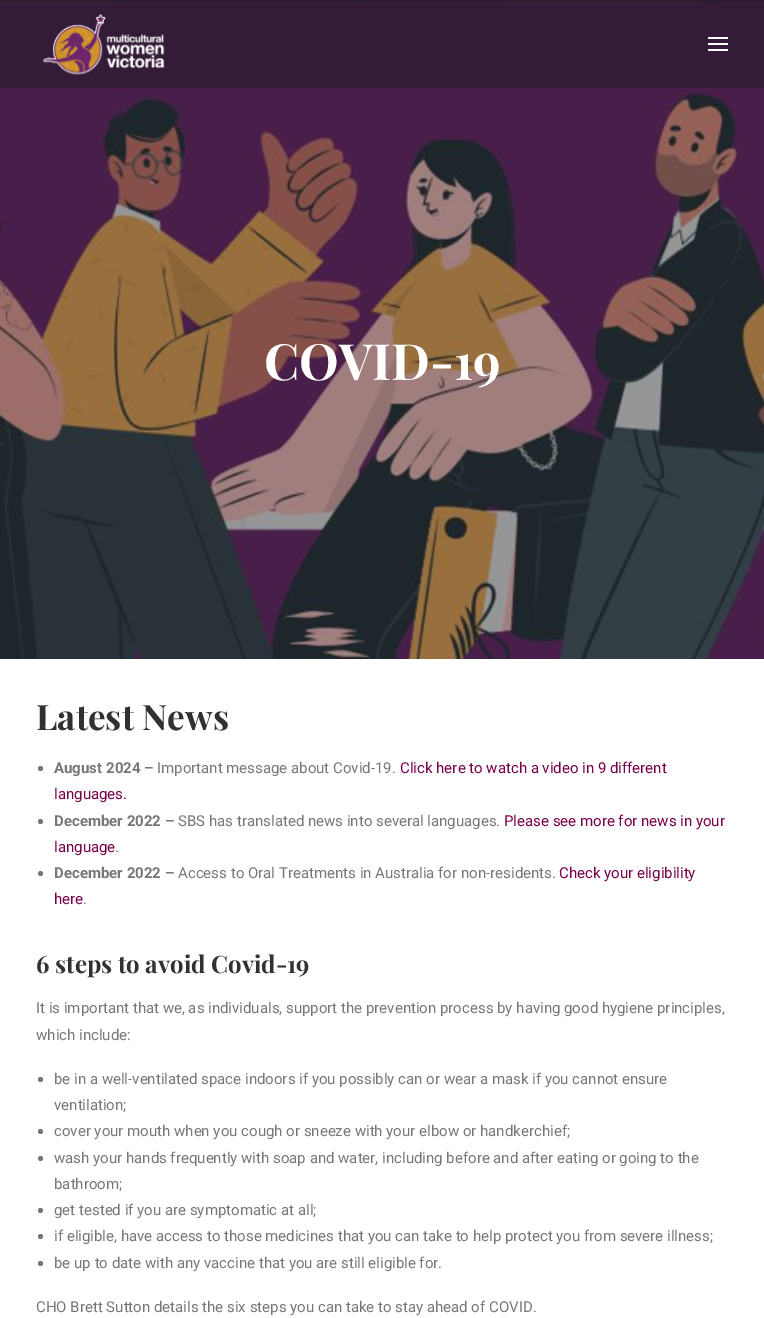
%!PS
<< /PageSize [764 1318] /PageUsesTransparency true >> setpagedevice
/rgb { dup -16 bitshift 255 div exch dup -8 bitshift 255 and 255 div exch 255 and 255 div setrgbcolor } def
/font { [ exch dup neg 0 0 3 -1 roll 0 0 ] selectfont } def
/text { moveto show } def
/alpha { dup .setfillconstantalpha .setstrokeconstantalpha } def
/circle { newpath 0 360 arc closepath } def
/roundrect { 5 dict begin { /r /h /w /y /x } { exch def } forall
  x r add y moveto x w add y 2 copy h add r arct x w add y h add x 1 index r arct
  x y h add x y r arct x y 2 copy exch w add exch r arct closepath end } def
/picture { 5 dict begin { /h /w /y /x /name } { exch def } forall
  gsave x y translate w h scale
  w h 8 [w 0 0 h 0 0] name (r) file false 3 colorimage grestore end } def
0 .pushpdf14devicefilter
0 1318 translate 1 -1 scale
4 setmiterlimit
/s1 { /PlayfairDisplay-Bold 50 font 16#FFFFFF rgb } def
/s2 { /PlayfairDisplay-Bold 35 font 16#303133 rgb } def
/s3 { /Roboto-Bold 15 font 16#777777 rgb } def
/s4 { /Roboto-Regular 15 font 16#777777 rgb } def
/s5 { /Roboto-Regular 15 font 16#770049 rgb } def
/s6 { /PlayfairDisplay-Bold 24 font 16#303133 rgb } def
16#FFFFFF rgb
0 0 764 1318 rectfill
(pic2.raw) 0 0 764 659 picture
0.4 alpha
16#141618 rgb
0 0 764 88 rectfill
1 alpha
(pic1.raw) 43 14 122 61 picture
16#FFFFFF rgb
708 43 20 2 1 roundrect fill
708 37 20 2 1 roundrect fill
708 49 20 2 1 roundrect fill
s1
(COVID-19) 264 380 text
s2
(Latest News) 36 730 text
16#777777 rgb
40.5 768.5 2.5 circle fill
s3
(August 2024 –) 54 773 text
s4
(Important message about Covid-19.) 157 773 text
s5
(Click here to watch a video in 9 different) 400 773 text
(languages.) 54 799 text
16#777777 rgb
40.5 821.5 2.5 circle fill
s3
(December 2022 –) 54 826 text
s4
(SBS has translated news into several languages.) 178 826 text
s5
(Please see more for news in your) 504 826 text
(language) 54 852 text
s4
(.) 115 852 text
40.5 873.5 2.5 circle fill
s3
(December 2022 –) 54 878 text
s4
(Access to Oral Treatments in Australia for non-residents.) 178 878 text
s5
(Check your eligibility) 559 878 text
(here) 54 904 text
s4
(.) 83 904 text
s6
(6 steps to avoid Covid-19) 36 973 text
s4
(It is important that we, as individuals, support the prevention process by having good hygiene principles,) 36 1013 text
(which include:) 36 1040 text
40.5 1079.5 2.5 circle fill
(be in a well-ventilated space indoors if you possibly can or wear a mask if you cannot ensure) 54 1084 text
(ventilation;) 54 1110 text
40.5 1131.5 2.5 circle fill
(cover your mouth when you cough or sneeze with your elbow or handkerchief;) 54 1136 text
40.5 1158.5 2.5 circle fill
(wash your hands frequently with soap and water, including before and after eating or going to the) 54 1163 text
(bathroom;) 54 1189 text
40.5 1210.5 2.5 circle fill
(get tested if you are symptomatic at all;) 54 1215 text
40.5 1236.5 2.5 circle fill
(if eligible, have access to those medicines that you can take to help protect you from severe illness;) 54 1241 text
40.5 1263.5 2.5 circle fill
(be up to date with any vaccine that you are still eligible for.) 54 1268 text
(CHO Brett Sutton details the six steps you can take to stay ahead of COVID.) 36 1312 text
.poppdf14devicefilter showpage
